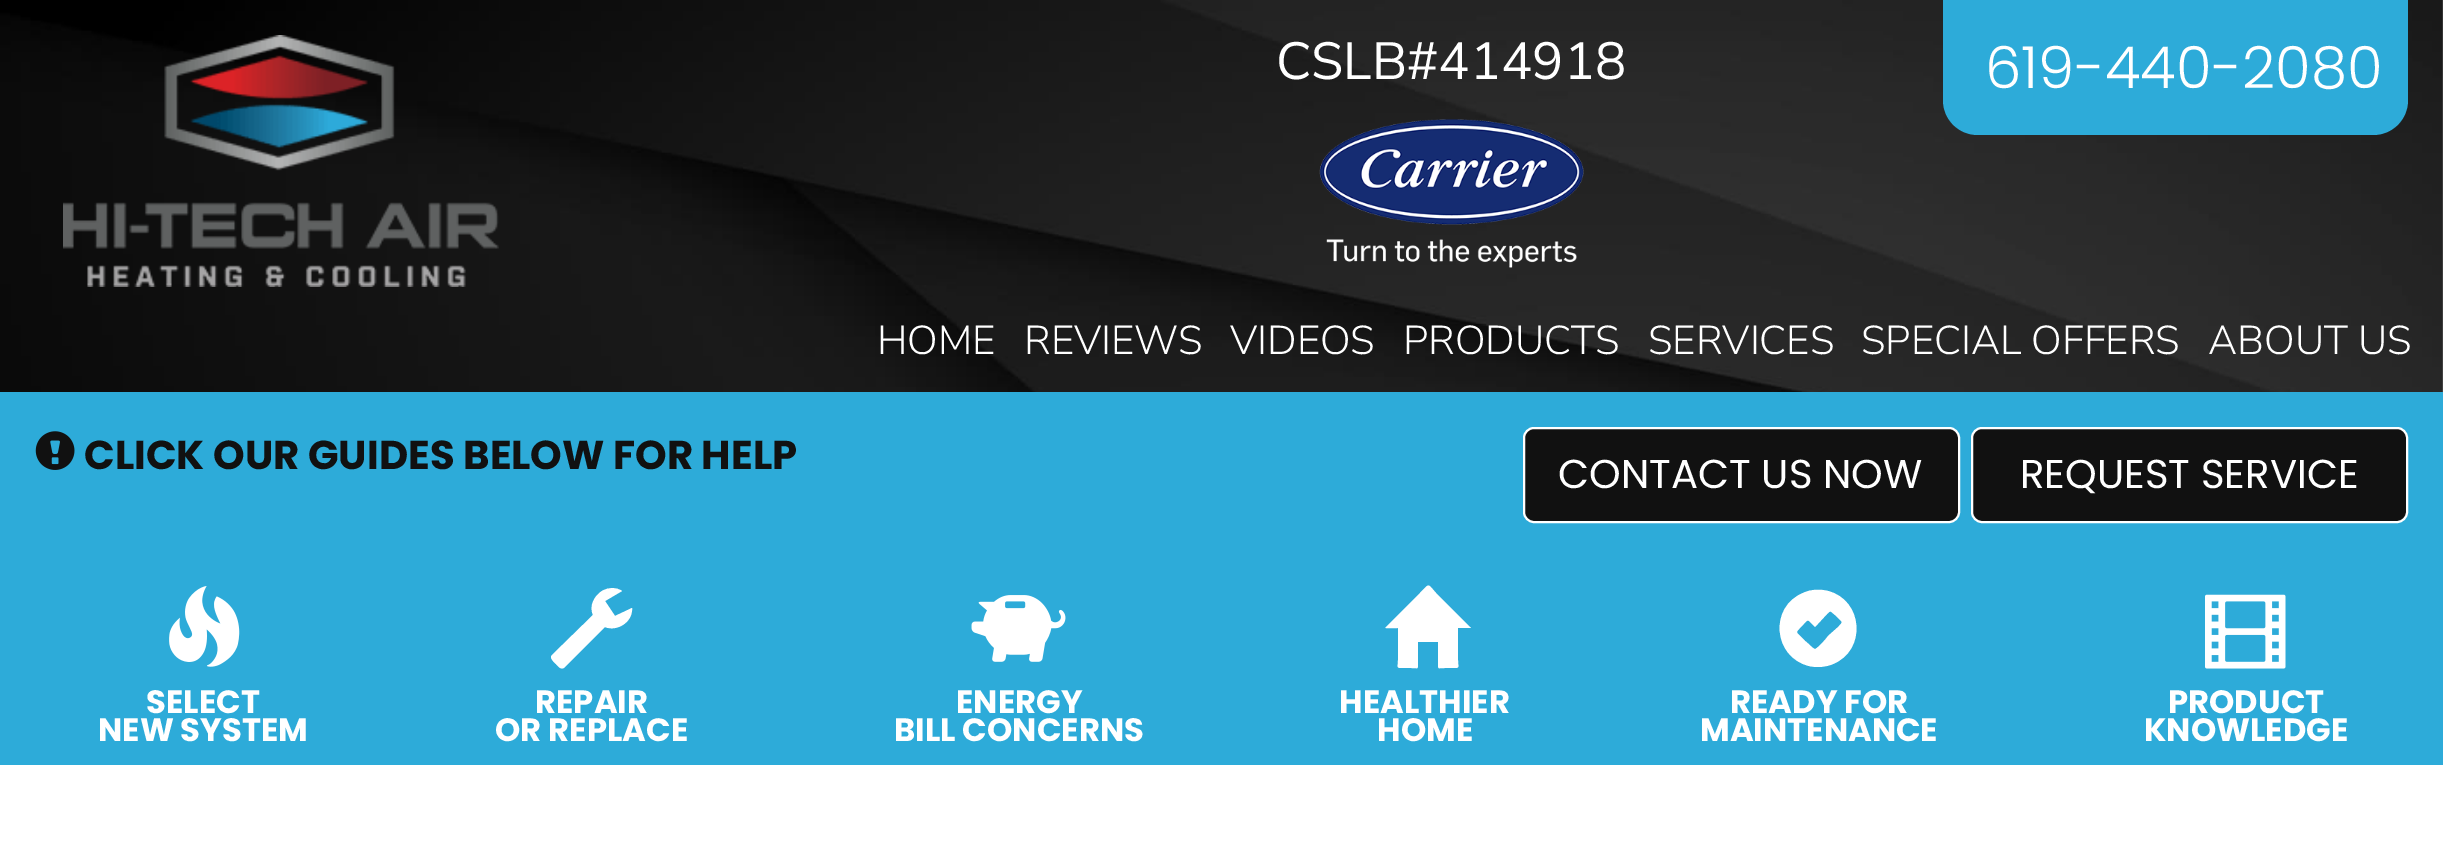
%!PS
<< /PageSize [2443 862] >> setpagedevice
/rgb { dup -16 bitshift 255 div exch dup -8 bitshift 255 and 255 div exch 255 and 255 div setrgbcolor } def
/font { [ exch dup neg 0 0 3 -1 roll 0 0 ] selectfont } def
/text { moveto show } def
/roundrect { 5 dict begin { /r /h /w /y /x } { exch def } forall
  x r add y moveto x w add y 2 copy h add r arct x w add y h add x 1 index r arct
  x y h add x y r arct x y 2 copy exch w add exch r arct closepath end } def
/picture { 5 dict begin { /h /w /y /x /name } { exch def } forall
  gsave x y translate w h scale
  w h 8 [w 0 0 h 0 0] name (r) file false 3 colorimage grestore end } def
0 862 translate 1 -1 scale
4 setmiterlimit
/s1 { /NunitoSans-Regular 52.25 font 16#FFFFFF rgb } def
/s2 { /Poppins-Light 58 font 16#FFFFFF rgb } def
/s3 { /NunitoSans-Light 40.25 font 16#FFFFFF rgb } def
/s4 { /Poppins-Bold 40.25 font 16#111111 rgb } def
/s5 { /Poppins-Regular 40.25 font 16#FFFFFF rgb } def
/s6 { /Poppins-Bold 32.25 font 16#FFFFFF rgb } def
16#FFFFFF rgb
0 0 2443 862 rectfill
(pic1.raw) 0 0 2443 392 picture
(pic2.raw) 63 35 436 252 picture
s1
(CSLB#414918) 1276 79 text
(pic3.raw) 1319 119 265 149 picture
16#2DABD9 rgb
1943 0 moveto 2408 0 lineto 2408 100 lineto 2408 119.5 2392.5 135 2373 135 curveto 1978 135 lineto 1958.5 135 1943 119.5 1943 100 curveto closepath fill
s2
(619-440-2080) 1985 88 text
s3
(HOME) 877 354 text
(REVIEWS) 1024 354 text
(VIDEOS) 1230 354 text
(PRODUCTS) 1403 354 text
(SERVICES) 1648 354 text
(SPECIAL OFFERS) 1861 354 text
(ABOUT US) 2208 354 text
16#2DABD9 rgb
0 392 2443 373 rectfill
(pic4.raw) 35 431 40 39 picture
s4
(CLICK OUR GUIDES BELOW FOR HELP) 84 469 text
1524 428 435 94 10 roundrect gsave fill grestore
16#FFFFFF rgb
2 setlinewidth
stroke
s5
(CONTACT US NOW) 1558 488 text
16#111111 rgb
1972 428 435 94 10 roundrect gsave fill grestore
16#FFFFFF rgb
stroke
(REQUEST SERVICE) 2020 488 text
(pic5.raw) 169 586 71 81 picture
s6
(SELECT) 146 713 text
(NEW SYSTEM) 98 741 text
602 591 moveto 609 587 616 587 622 591 curveto 605 601 lineto 615 616 lineto 632 608 lineto 633 622 617 632 605 627 curveto 565 667 lineto 561 671 558 666 556 664 curveto 554 662 549 658 552 655 curveto 593 615 lineto 589 606 594 596 602 591 curveto closepath fill
(REPAIR) 535 713 text
(OR REPLACE) 495 741 text
(pic6.raw) 971 595 95 67 picture
(ENERGY) 956 713 text
(BILL CONCERNS) 894 741 text
1386 627 moveto 1420 593 lineto 1430 583 1427 583 1436 593 curveto 1470 627 lineto 1471 627 1471 628 1470 628 curveto 1458 628 lineto 1458 660 lineto 1458 667 1460 668 1454 668 curveto 1445 668 lineto 1438 668 1438 670 1438 663 curveto 1438 642 lineto 1418 642 lineto 1418 663 lineto 1418 670 1418 668 1411 668 curveto 1402 668 lineto 1396 668 1398 667 1398 660 curveto 1398 628 lineto 1392 628 1383 629 1386 627 curveto closepath fill
(HEALTHIER) 1339 713 text
(HOME) 1377 741 text
1803 593 moveto 1811 589 1820 589 1828 591 curveto 1863 600 1867 650 1833 664 curveto 1826 667 1817 668 1809 666 curveto 1773 657 1769 607 1803 593 curveto closepath 1815 627 moveto 1807 619 1809 618 1802 626 curveto 1794 634 1796 631 1805 641 curveto 1807 642 1813 649 1815 649 curveto 1817 649 1827 638 1828 636 curveto 1837 628 lineto 1844 621 1843 623 1835 615 curveto 1830 611 1831 610 1827 614 curveto closepath fill
(READY FOR) 1730 713 text
(MAINTENANCE) 1700 741 text
(pic7.raw) 2205 594 81 75 picture
(PRODUCT) 2168 713 text
(KNOWLEDGE) 2144 741 text
showpage
